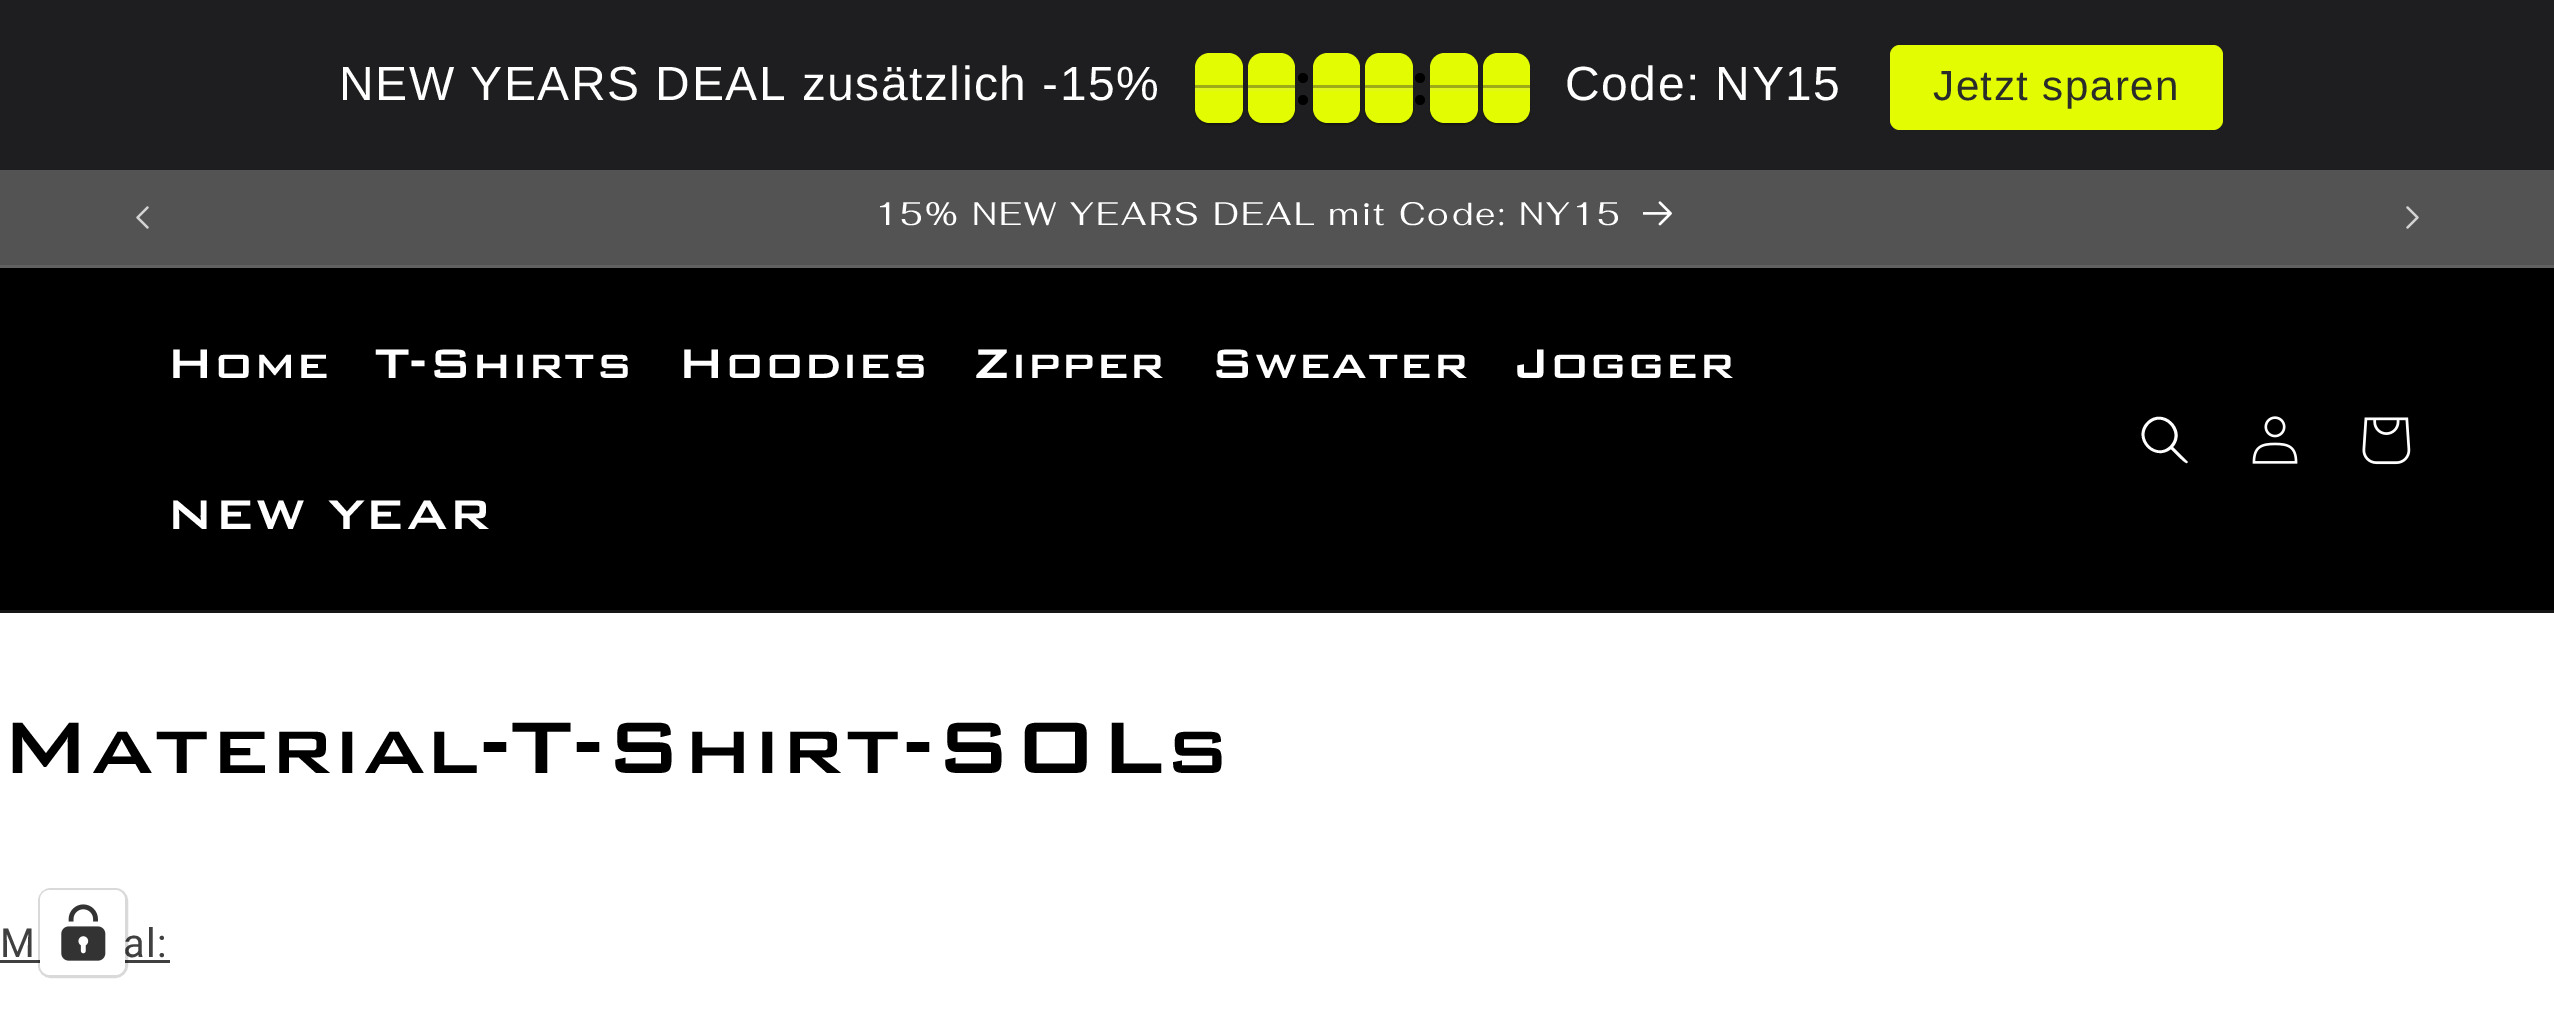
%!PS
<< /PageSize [2554 1013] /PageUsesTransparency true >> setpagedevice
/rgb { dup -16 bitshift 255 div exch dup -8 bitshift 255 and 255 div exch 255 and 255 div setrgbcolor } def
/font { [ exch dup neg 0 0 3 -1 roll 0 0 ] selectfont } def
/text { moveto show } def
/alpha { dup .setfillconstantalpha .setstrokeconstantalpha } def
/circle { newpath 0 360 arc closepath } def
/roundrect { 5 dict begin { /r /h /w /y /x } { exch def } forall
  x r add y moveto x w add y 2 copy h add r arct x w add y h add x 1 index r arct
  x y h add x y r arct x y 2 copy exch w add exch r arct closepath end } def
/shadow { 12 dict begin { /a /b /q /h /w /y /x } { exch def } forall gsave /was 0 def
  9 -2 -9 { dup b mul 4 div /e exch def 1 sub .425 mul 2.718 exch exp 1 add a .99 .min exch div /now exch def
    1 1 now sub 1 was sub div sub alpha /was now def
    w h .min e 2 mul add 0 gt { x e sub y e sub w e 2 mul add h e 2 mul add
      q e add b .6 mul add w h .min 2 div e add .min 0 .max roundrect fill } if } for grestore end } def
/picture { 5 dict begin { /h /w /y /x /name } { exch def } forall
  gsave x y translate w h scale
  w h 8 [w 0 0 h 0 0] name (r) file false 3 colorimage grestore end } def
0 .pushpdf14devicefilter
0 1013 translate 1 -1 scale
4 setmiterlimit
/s1 { /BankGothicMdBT-Medium 55 font 16#FFFFFF rgb } def
/s2 { /BankGothicMdBT-Medium 97.5 font 16#000000 rgb } def
16#FFFFFF rgb
0 0 2554 1013 rectfill
16#1E1E20 rgb
0 0 2554 170 rectfill
/LiberationSans-Regular 48 font
16#FFFFFF rgb
339 100 moveto 1.5 0 (NEW YEARS DEAL zusätzlich -15%) ashow
16#000000 rgb
1195 90 48 35 15 1 0.4 shadow
16#E3FC02 rgb
1210 53 moveto 1228 53 lineto 1236.5 53 1243 59.5 1243 68 curveto 1243 88 lineto 1195 88 lineto 1195 68 lineto 1195 59.5 1201.5 53 1210 53 curveto closepath fill
0.4 alpha
16#333333 rgb
1195 85 48 3 rectfill
1 alpha
16#E3FC02 rgb
1195 88 moveto 1243 88 lineto 1243 108 lineto 1243 116.5 1236.5 123 1228 123 curveto 1210 123 lineto 1201.5 123 1195 116.5 1195 108 curveto closepath fill
0.1 alpha
16#CCCCCC rgb
1195 88 48 3 rectfill
1 alpha
16#000000 rgb
1303 100 5 circle fill
1248 90 47 35 15 1 0.4 shadow
16#E3FC02 rgb
1263 53 moveto 1280 53 lineto 1288.5 53 1295 59.5 1295 68 curveto 1295 88 lineto 1248 88 lineto 1248 68 lineto 1248 59.5 1254.5 53 1263 53 curveto closepath fill
0.4 alpha
16#333333 rgb
1248 85 47 3 rectfill
1 alpha
16#E3FC02 rgb
1248 88 moveto 1295 88 lineto 1295 108 lineto 1295 116.5 1288.5 123 1280 123 curveto 1263 123 lineto 1254.5 123 1248 116.5 1248 108 curveto closepath fill
0.1 alpha
16#CCCCCC rgb
1248 88 47 3 rectfill
1 alpha
16#000000 rgb
1303 78 5 circle fill
1313 90 47 35 15 1 0.4 shadow
16#E3FC02 rgb
1328 53 moveto 1345 53 lineto 1353.5 53 1360 59.5 1360 68 curveto 1360 88 lineto 1313 88 lineto 1313 68 lineto 1313 59.5 1319.5 53 1328 53 curveto closepath fill
0.4 alpha
16#333333 rgb
1313 85 47 3 rectfill
1 alpha
16#E3FC02 rgb
1313 88 moveto 1360 88 lineto 1360 108 lineto 1360 116.5 1353.5 123 1345 123 curveto 1328 123 lineto 1319.5 123 1313 116.5 1313 108 curveto closepath fill
0.1 alpha
16#CCCCCC rgb
1313 88 47 3 rectfill
1 alpha
16#000000 rgb
1420 100 5 circle fill
1365 90 48 35 15 1 0.4 shadow
16#E3FC02 rgb
1380 53 moveto 1398 53 lineto 1406.5 53 1413 59.5 1413 68 curveto 1413 88 lineto 1365 88 lineto 1365 68 lineto 1365 59.5 1371.5 53 1380 53 curveto closepath fill
0.4 alpha
16#333333 rgb
1365 85 48 3 rectfill
1 alpha
16#E3FC02 rgb
1365 88 moveto 1413 88 lineto 1413 108 lineto 1413 116.5 1406.5 123 1398 123 curveto 1380 123 lineto 1371.5 123 1365 116.5 1365 108 curveto closepath fill
0.1 alpha
16#CCCCCC rgb
1365 88 48 3 rectfill
1 alpha
16#000000 rgb
1420 78 5 circle fill
1430 90 48 35 15 1 0.4 shadow
16#E3FC02 rgb
1445 53 moveto 1463 53 lineto 1471.5 53 1478 59.5 1478 68 curveto 1478 88 lineto 1430 88 lineto 1430 68 lineto 1430 59.5 1436.5 53 1445 53 curveto closepath fill
0.4 alpha
16#333333 rgb
1430 85 48 3 rectfill
1 alpha
16#E3FC02 rgb
1430 88 moveto 1478 88 lineto 1478 108 lineto 1478 116.5 1471.5 123 1463 123 curveto 1445 123 lineto 1436.5 123 1430 116.5 1430 108 curveto closepath fill
0.1 alpha
16#CCCCCC rgb
1430 88 48 3 rectfill
1 alpha
16#000000 rgb
1483 90 47 35 15 1 0.4 shadow
16#E3FC02 rgb
1498 53 moveto 1515 53 lineto 1523.5 53 1530 59.5 1530 68 curveto 1530 88 lineto 1483 88 lineto 1483 68 lineto 1483 59.5 1489.5 53 1498 53 curveto closepath fill
0.4 alpha
16#333333 rgb
1483 85 47 3 rectfill
1 alpha
16#E3FC02 rgb
1483 88 moveto 1530 88 lineto 1530 108 lineto 1530 116.5 1523.5 123 1515 123 curveto 1498 123 lineto 1489.5 123 1483 116.5 1483 108 curveto closepath fill
0.1 alpha
16#CCCCCC rgb
1483 88 47 3 rectfill
1 alpha
16#FFFFFF rgb
1565 100 moveto 1.5 0 (Code: NY15) ashow
16#E3FC02 rgb
1890 45 333 85 10 roundrect fill
/LiberationSans-Regular 42 font
16#2A2C2B rgb
1933 100 moveto 1.5 0 (Jetzt sparen) ashow
16#545353 rgb
0 170 2554 95 rectfill
16#626161 rgb
0 265 2554 3 rectfill
(pic1.raw) 136 206 13 23 picture
/Fahkwang-Regular 32.5 font
16#FFFFFF rgb
875 225 moveto 2.5 0 (15% NEW YEARS DEAL mit Code: NY15) ashow
(pic2.raw) 1643 201 29 25 picture
(pic3.raw) 2406 206 13 23 picture
16#000000 rgb
0 268 2554 342 rectfill
16#141414 rgb
0 610 2554 3 rectfill
s1
(Home) 166 378 text
(T-Shirts) 375 378 text
(Hoodies) 677 378 text
(Zipper) 973 378 text
(Sweater) 1210 378 text
(Jogger) 1513 378 text
(NEW YEAR) 166 529 text
2170 446 moveto 2156 460 2135 438 2149 424 curveto 2163 410 2184 432 2170 446 curveto closepath 2171 449 moveto 2154 463 2131 438 2147 422 curveto 2163 406 2188 430 2173 447 curveto 2188 462 lineto 2187 463 lineto 2185 464 2173 451 2171 449 curveto closepath eofill
(pic4.raw) 2252 416 46 48 picture
(pic5.raw) 2362 417 49 48 picture
s2
(Material-T-Shirt-SOLs) 0 773 text
/Roboto-Regular 40 font
16#404040 rgb
0 957 moveto 1.5 0 (M) ashow
0 960 170 3 rectfill
123 957 moveto 1.5 0 (al:) ashow
0.15 alpha
16#000000 rgb
3 setlinewidth
39.5 889.5 87 87 11.5 roundrect stroke
1 alpha
16#FFFFFF rgb
40 890 85 85 10 roundrect fill
(pic6.raw) 61 904 45 57 picture
.poppdf14devicefilter showpage
